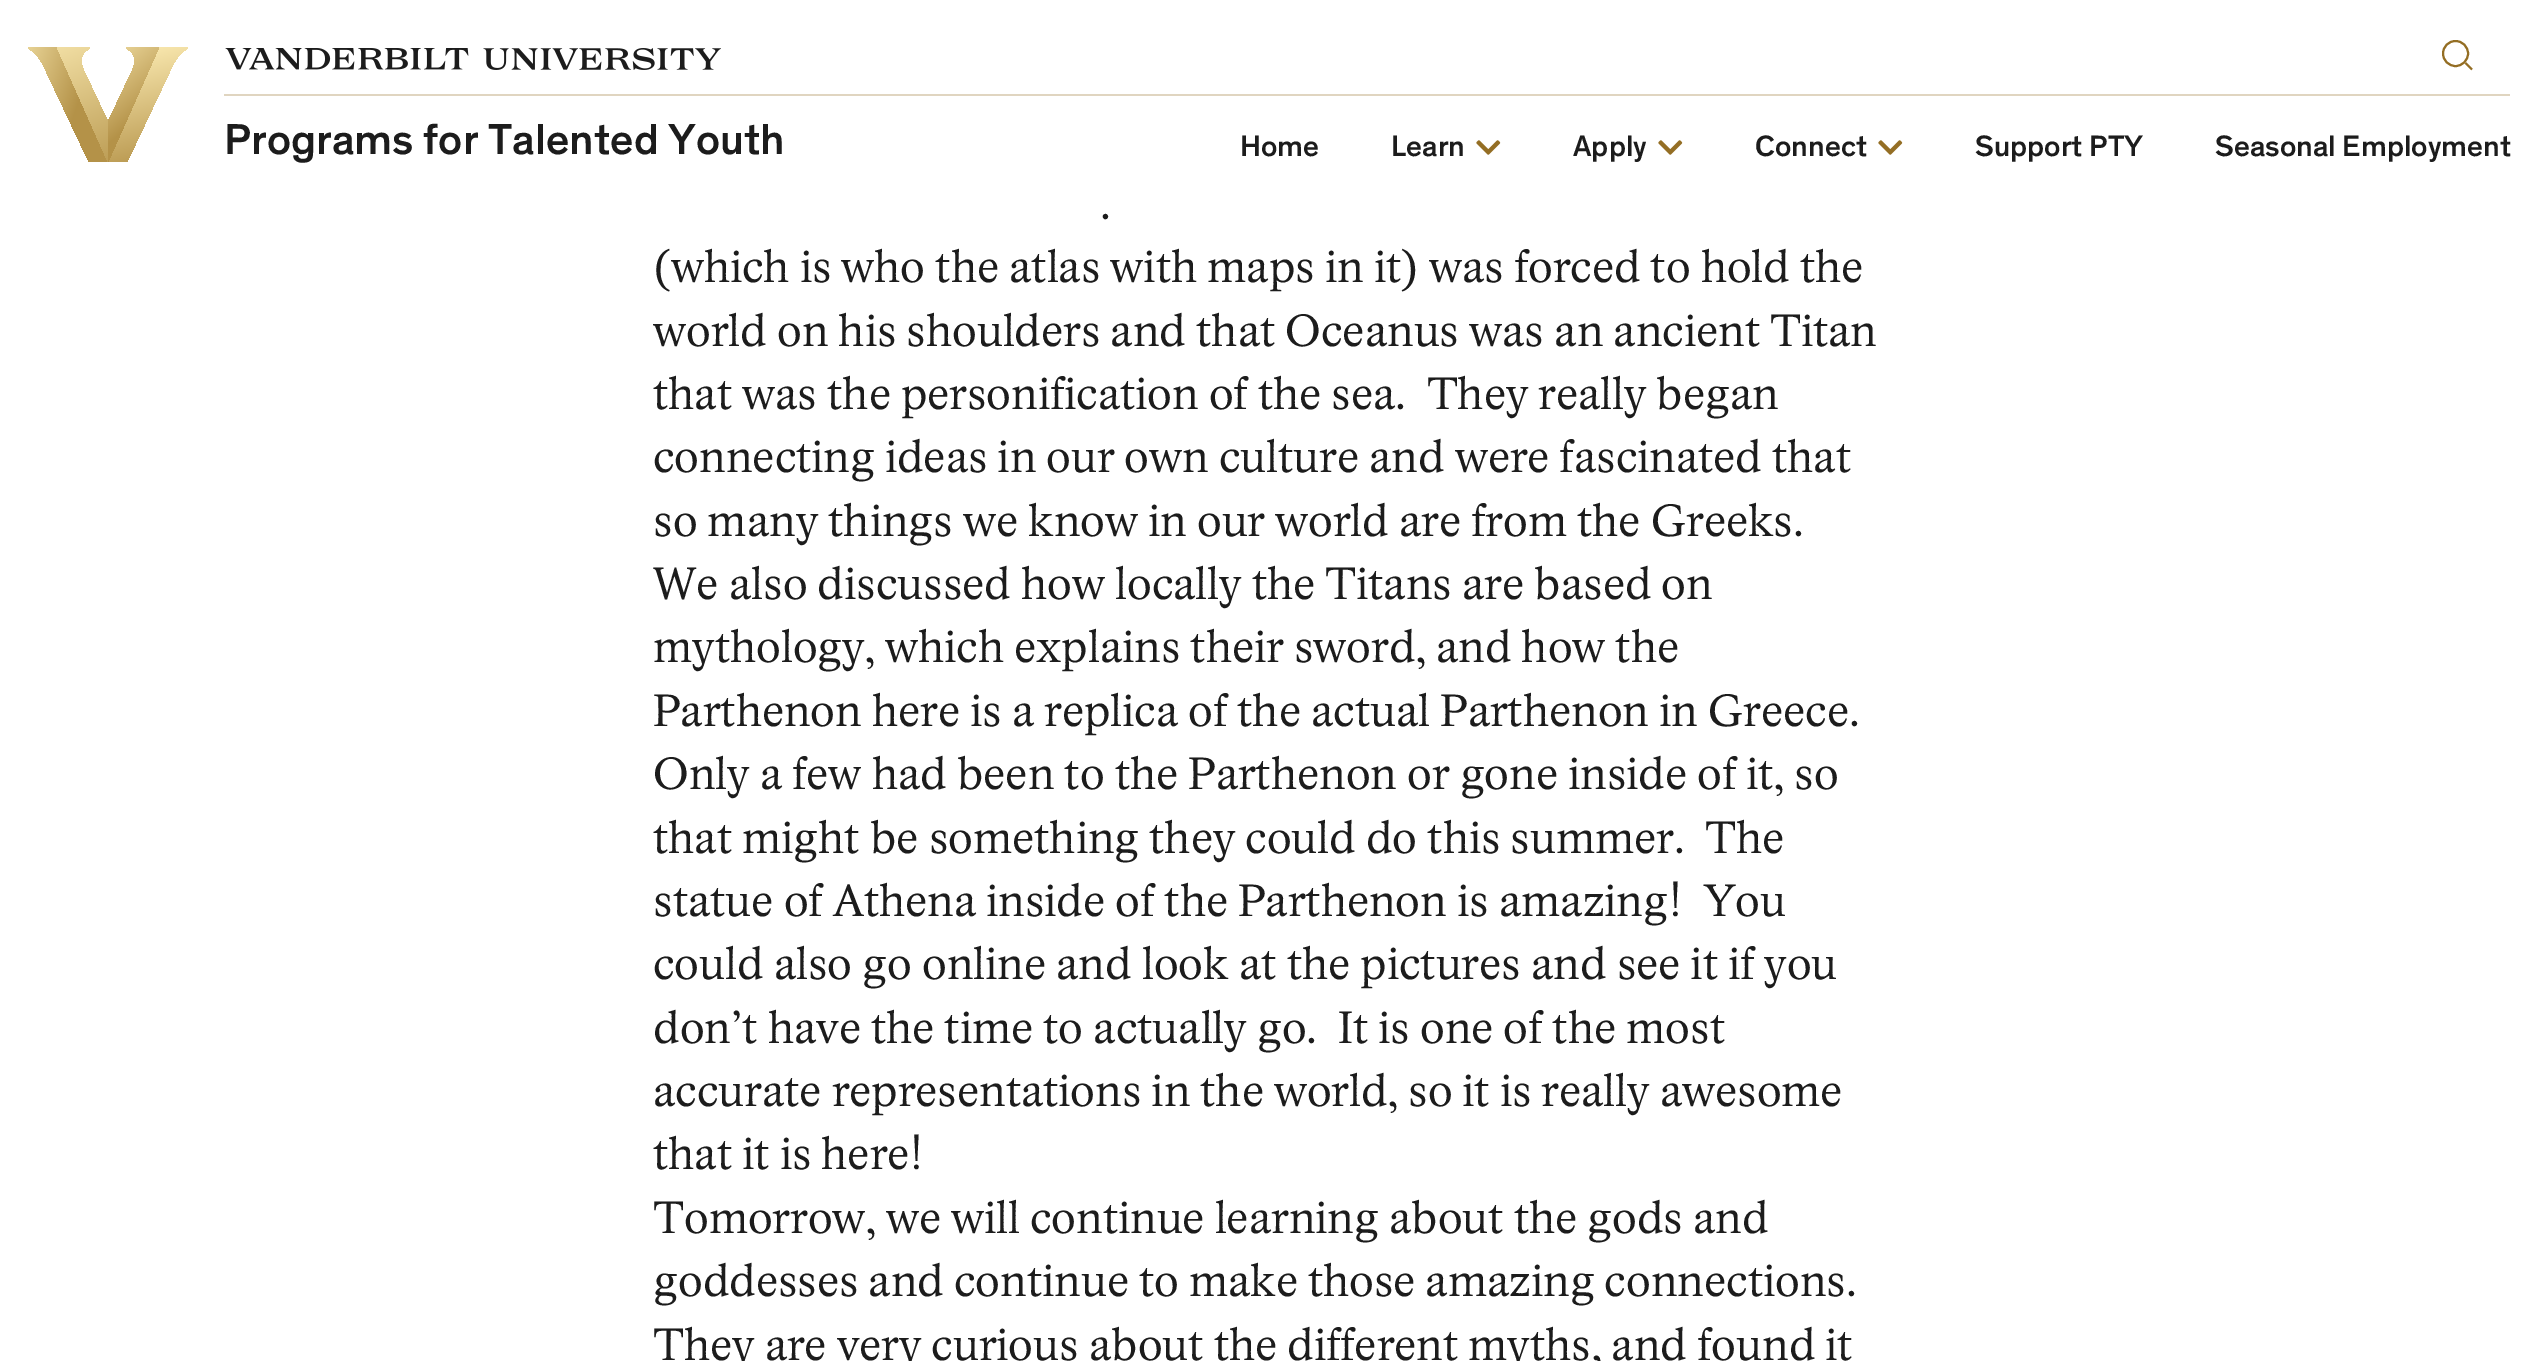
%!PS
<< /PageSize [2535 1361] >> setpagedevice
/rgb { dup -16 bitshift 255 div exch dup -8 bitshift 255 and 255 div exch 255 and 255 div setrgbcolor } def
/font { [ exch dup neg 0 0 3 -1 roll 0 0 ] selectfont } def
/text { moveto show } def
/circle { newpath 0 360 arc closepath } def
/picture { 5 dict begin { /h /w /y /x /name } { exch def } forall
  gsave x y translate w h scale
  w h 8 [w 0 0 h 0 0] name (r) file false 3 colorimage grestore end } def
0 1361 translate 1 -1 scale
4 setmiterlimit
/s1 { /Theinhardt-Medium 44 font 16#1C1C1C rgb } def
/s2 { /Theinhardt-Medium 30 font 16#1C1C1C rgb } def
/s3 { /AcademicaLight-Light 45.3 font 16#1C1C1C rgb } def
16#FFFFFF rgb
0 0 2535 1361 rectfill
gsave 57 47 moveto 28 47 lineto 28 48 lineto 37 54 41 59 46 71 curveto 89 162 lineto 108 162 lineto closepath clip newpath
<< /ShadingType 2 /ColorSpace /DeviceRGB /Coords [-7.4 59 83 91] /Extend [true true] /Function << /FunctionType 2 /Domain [0 1] /C0 [0.996 0.933 0.714] /C1 [0.706 0.573 0.282] /N 1 >> >> shfill grestore
gsave 108 162 moveto 108 122 lineto 84 71 lineto 79 59 80 54 90 48 curveto 90 47 lineto 57 47 lineto closepath clip newpath
<< /ShadingType 2 /ColorSpace /DeviceRGB /Coords [38 22 107 187] /Extend [true true] /Function << /FunctionType 2 /Domain [0 1] /C0 [0.996 0.933 0.714] /C1 [0.706 0.573 0.282] /N 1 >> >> shfill grestore
gsave 159 47 moveto 188 47 lineto 188 48 lineto 179 54 175 59 170 71 curveto 127 162 lineto 108 162 lineto closepath clip newpath
<< /ShadingType 2 /ColorSpace /DeviceRGB /Coords [109 48 142 174] /Extend [true true] /Function << /FunctionType 2 /Domain [0 1] /C0 [0.996 0.933 0.714] /C1 [0.706 0.573 0.282] /N 1 >> >> shfill grestore
gsave 108 162 moveto 108 122 lineto 132 71 lineto 137 59 136 54 126 48 curveto 126 47 lineto 159 47 lineto closepath clip newpath
<< /ShadingType 2 /ColorSpace /DeviceRGB /Coords [84 40 145 114] /Extend [true true] /Function << /FunctionType 2 /Domain [0 1] /C0 [0.996 0.933 0.714] /C1 [0.706 0.573 0.282] /N 1 >> >> shfill grestore
(pic1.raw) 225 48 496 22 picture
16#946E24 rgb
2 setlinewidth
2455.5 53.5 12.5 circle stroke
2465.5 63 moveto 2472 69.5 lineto stroke
16#E0D5C0 rgb
224 94 2286 2 rectfill
s1
(Programs for Talented Youth) 224 154 text
s2
(Home) 1240 156 text
(Learn) 1391 156 text
(pic2.raw) 1476 140 25 15 picture
(Apply) 1573 156 text
(pic2.raw) 1658 140 25 15 picture
(Connect) 1755 156 text
(pic2.raw) 1878 140 25 15 picture
(Support PTY) 1975 156 text
(Seasonal Employment) 2215 156 text
/AcademicaLight-Light 45.3 font
1100 219 moveto -0.1 0 32 (.) widthshow
(\(which is who the atlas with maps in it\) was forced to hold the) 653 282 text
(world on his shoulders and that Oceanus was an ancient Titan) 653 346 text
(that was the personification of the sea.  They really began) 653 409 text
653 472 moveto -0.1 0 32 (connecting ideas in our own culture and were fascinated that) widthshow
(so many things we know in our world are from the Greeks.) 653 536 text
(We also discussed how locally the Titans are based on) 653 599 text
(mythology, which explains their sword, and how the) 653 662 text
(Parthenon here is a replica of the actual Parthenon in Greece.) 653 726 text
(Only a few had been to the Parthenon or gone inside of it, so) 653 789 text
(that might be something they could do this summer.  The) 653 853 text
(statue of Athena inside of the Parthenon is amazing!  You) 653 916 text
(could also go online and look at the pictures and see it if you) 653 979 text
(don’t have the time to actually go.  It is one of the most) 653 1043 text
653 1106 moveto -0.1 0 32 (accurate representations in the world, so it is really awesome) widthshow
(that it is here!) 653 1169 text
653 1233 moveto -0.1 0 32 (Tomorrow, we will continue learning about the gods and) widthshow
653 1296 moveto -0.25 0 32 (goddesses and continue to make those amazing connections.) widthshow
(They are very curious about the different myths, and found it) 653 1360 text
showpage
